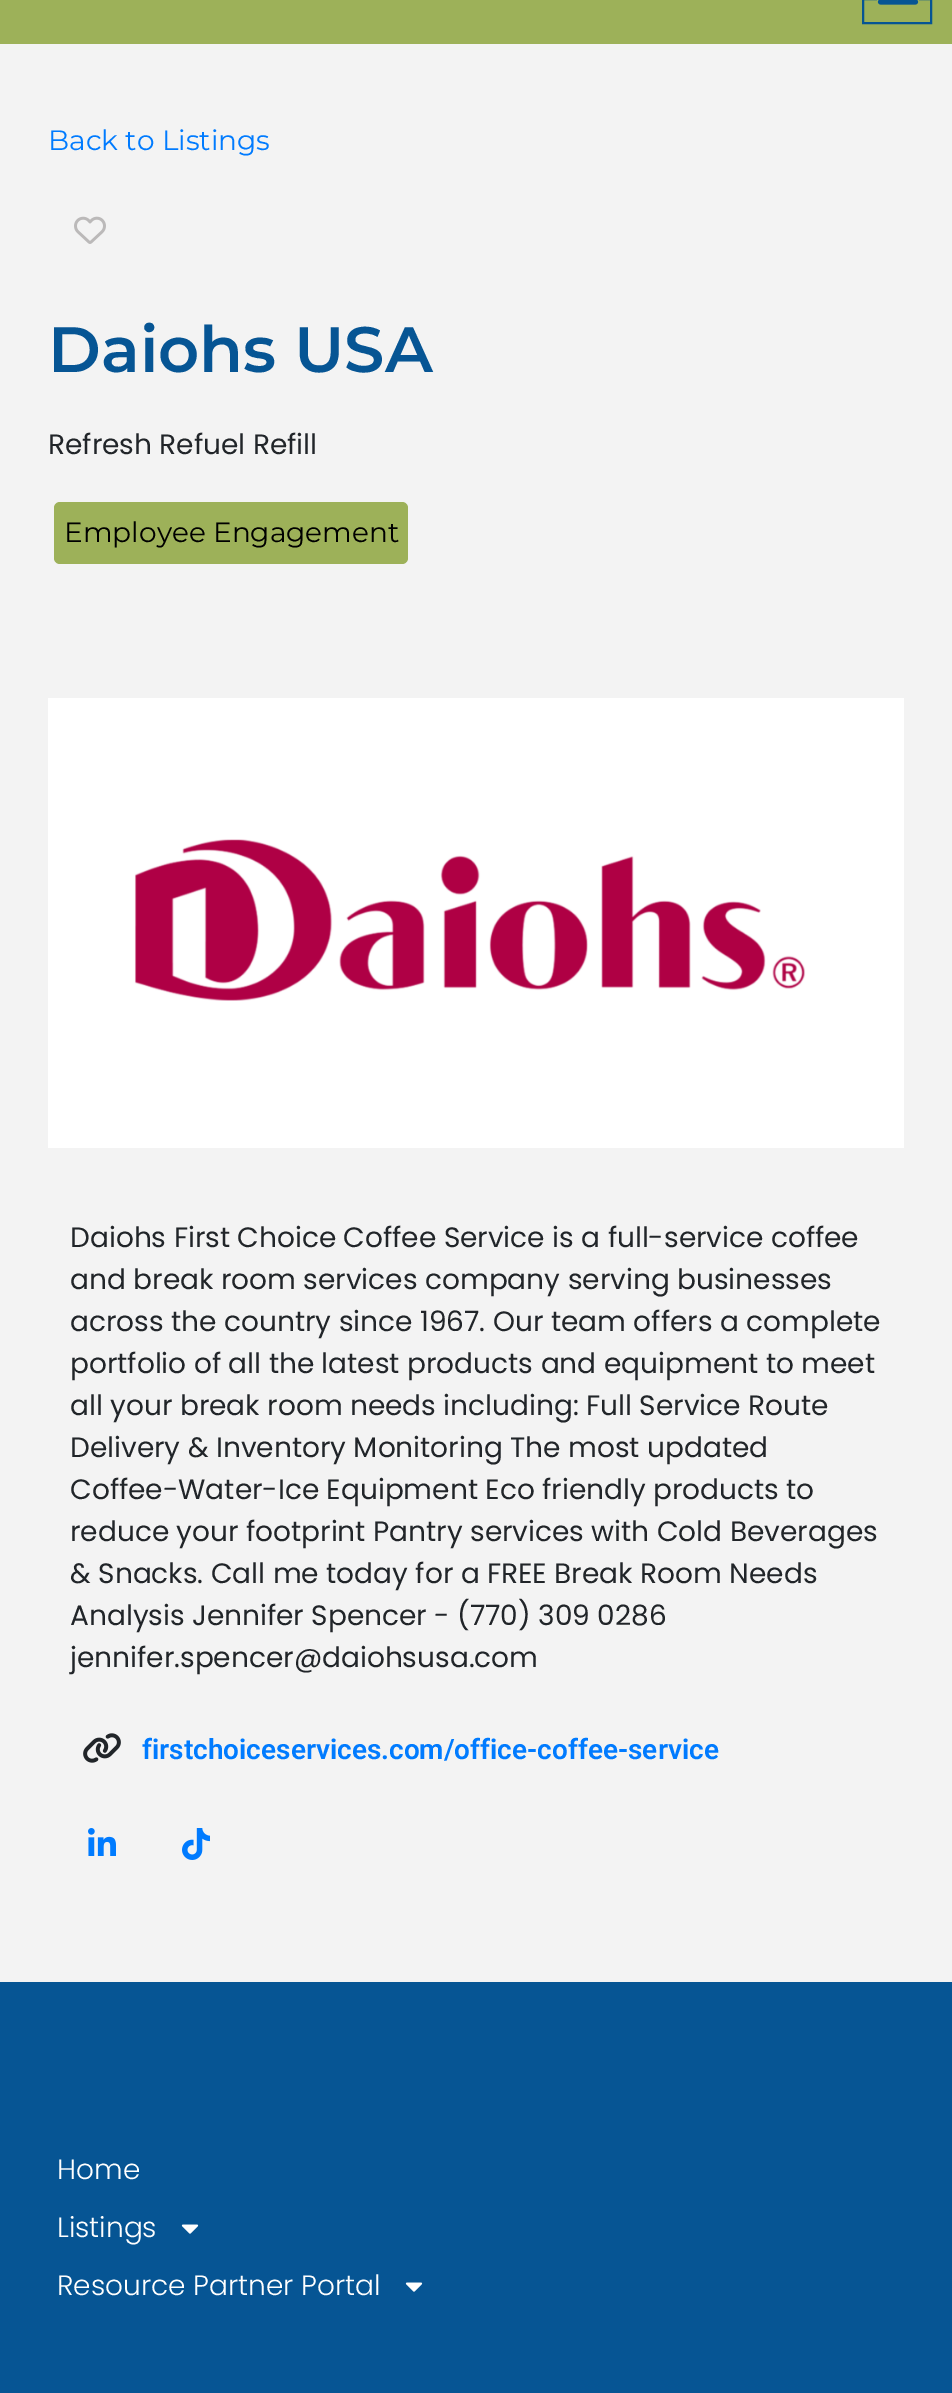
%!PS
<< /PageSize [952 2393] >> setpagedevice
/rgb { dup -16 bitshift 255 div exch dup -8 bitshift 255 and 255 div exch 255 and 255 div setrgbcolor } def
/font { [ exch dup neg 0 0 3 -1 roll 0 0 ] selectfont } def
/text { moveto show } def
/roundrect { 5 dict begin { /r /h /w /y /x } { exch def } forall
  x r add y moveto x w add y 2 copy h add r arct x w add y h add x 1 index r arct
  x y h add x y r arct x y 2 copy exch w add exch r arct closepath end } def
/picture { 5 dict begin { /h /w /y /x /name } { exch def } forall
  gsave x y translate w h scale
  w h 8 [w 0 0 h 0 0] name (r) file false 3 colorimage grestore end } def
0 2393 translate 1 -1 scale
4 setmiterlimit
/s1 { /Montserrat-Regular 28 font 16#007BFF rgb } def
/s2 { /Montserrat-SemiBold 64 font 16#065594 rgb } def
/s3 { /Poppins-Regular 28 font 16#212529 rgb } def
/s4 { /Montserrat-Regular 28 font 16#000000 rgb } def
/s5 { /Roboto-SemiBold 28 font 16#007BFF rgb } def
/s6 { /Poppins-Light 28 font 16#FFFFFF rgb } def
16#F3F3F3 rgb
0 0 952 2393 rectfill
16#9DB159 rgb
0 0 952 44 rectfill
16#065594 rgb
2 setlinewidth
863 -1 68 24 rectstroke
(pic1.raw) 877 0 42 5 picture
s1
(Back to Listings) 48 150 text
(pic2.raw) 74 216 32 28 picture
s2
(Daiohs USA) 48 372 text
s3
(Refresh Refuel Refill) 48 454 text
16#9DB159 rgb
54 502 354 62 6 roundrect fill
s4
(Employee Engagement) 64 542 text
(pic3.raw) 48 698 856 450 picture
s3
(Daiohs First Choice Coffee Service is a full-service coffee) 70 1247 text
(and break room services company serving businesses) 70 1289 text
(across the country since 1967. Our team offers a complete) 70 1331 text
(portfolio of all the latest products and equipment to meet) 70 1373 text
(all your break room needs including: Full Service Route) 70 1415 text
(Delivery & Inventory Monitoring The most updated) 70 1457 text
(Coffee-Water-Ice Equipment Eco friendly products to) 70 1499 text
(reduce your footprint Pantry services with Cold Beverages) 70 1541 text
(& Snacks. Call me today for a FREE Break Room Needs) 70 1583 text
(Analysis Jennifer Spencer - \(770\) 309 0286) 70 1625 text
(jennifer.spencer@daiohsusa.com) 70 1667 text
(pic4.raw) 83 1733 38 30 picture
s5
(firstchoiceservices.com/office-coffee-service) 142 1759 text
(pic5.raw) 88 1828 28 28 picture
(pic6.raw) 182 1828 28 32 picture
16#065594 rgb
0 1982 952 411 rectfill
s6
(Home) 57 2179 text
(Listings) 57 2237 text
(pic7.raw) 181 2224 18 10 picture
(Resource Partner Portal) 57 2295 text
(pic7.raw) 405 2282 18 10 picture
showpage
